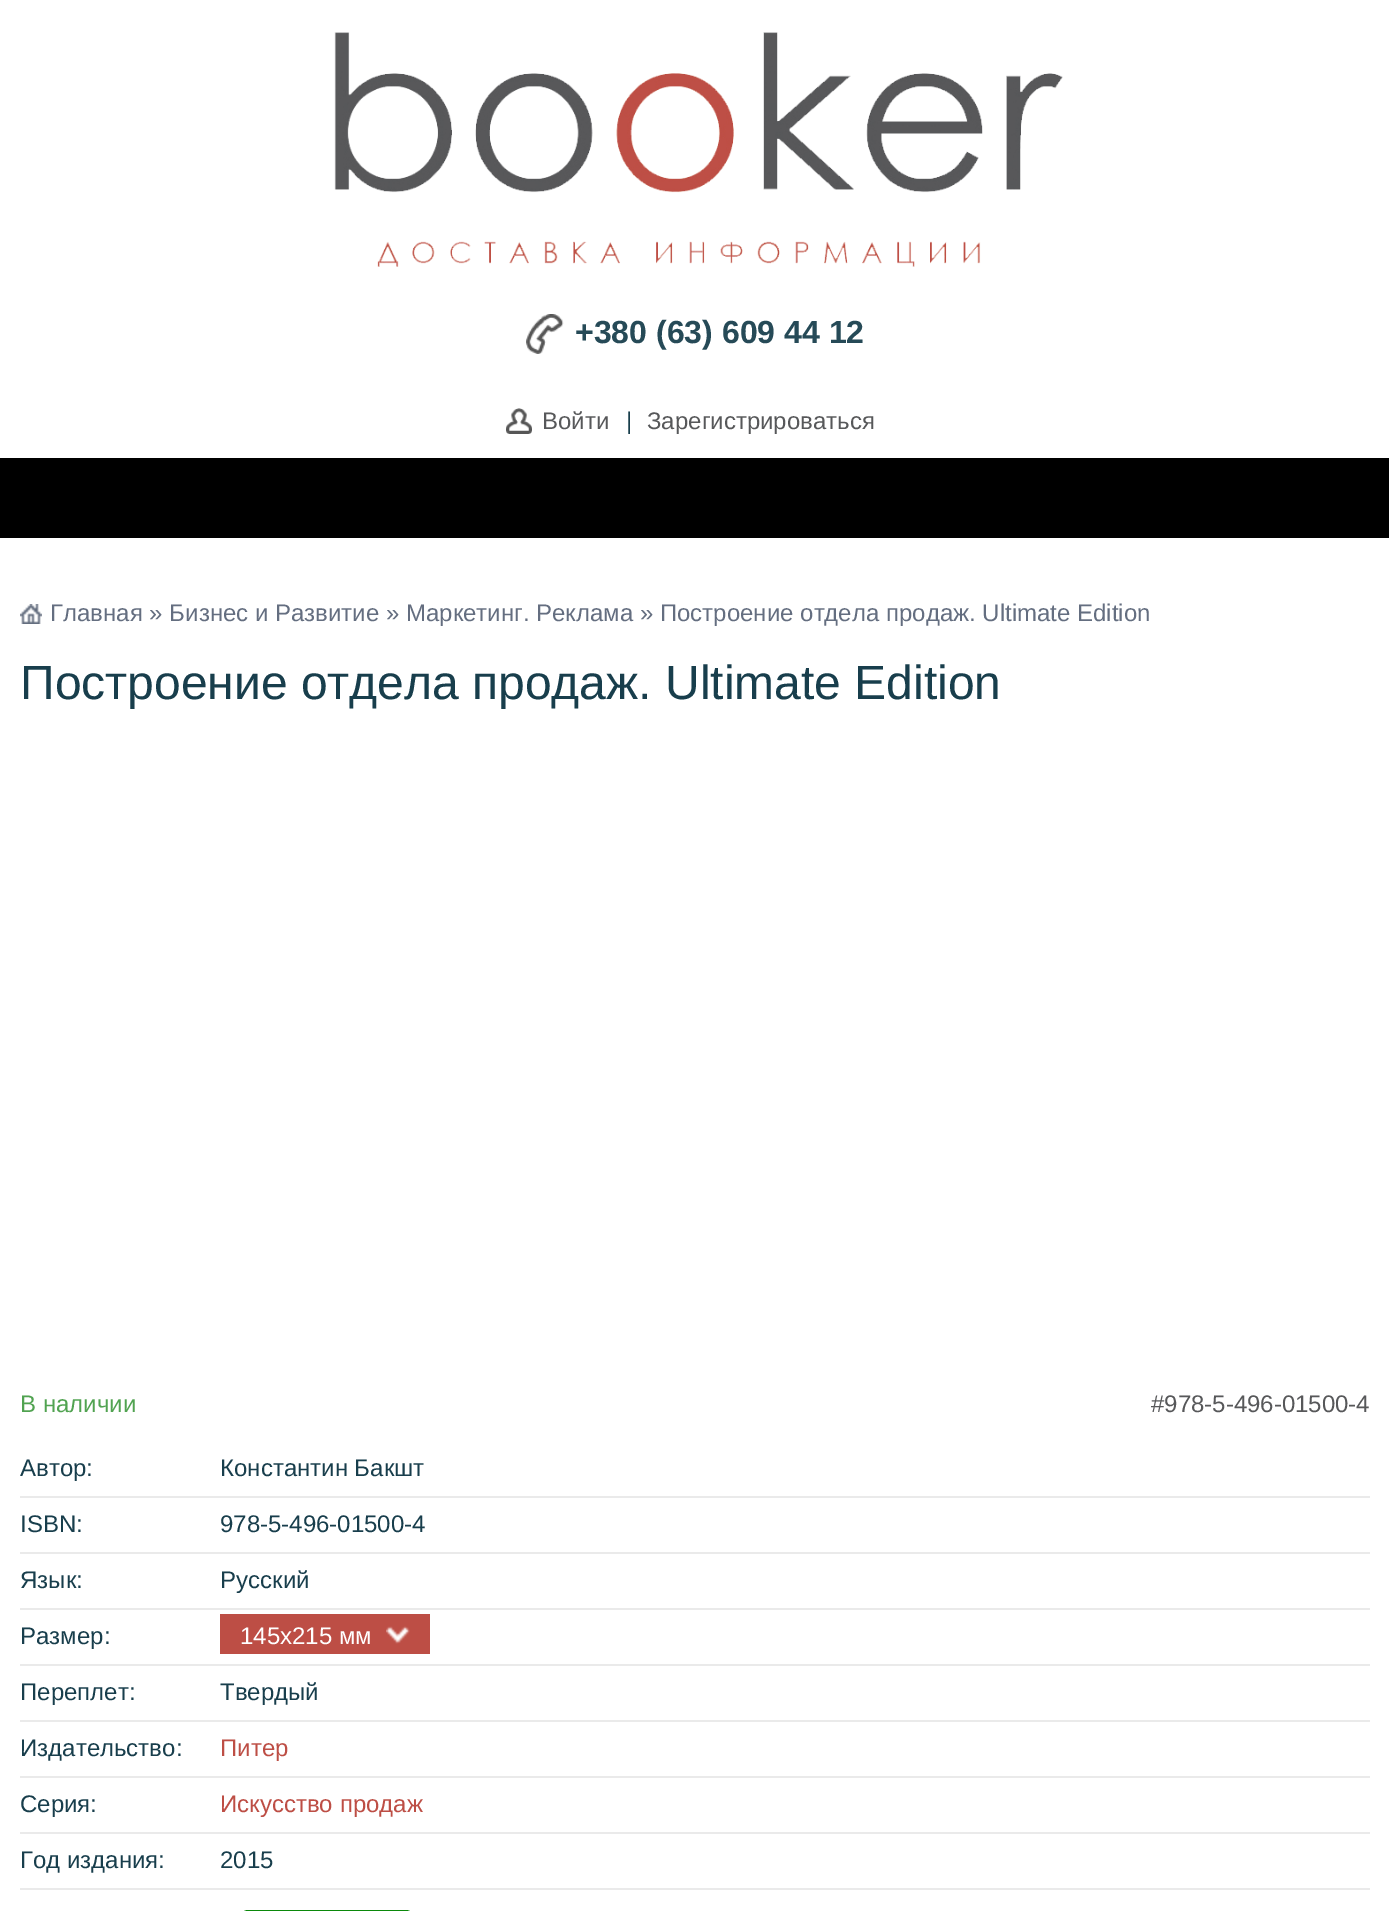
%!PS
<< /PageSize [1389 1911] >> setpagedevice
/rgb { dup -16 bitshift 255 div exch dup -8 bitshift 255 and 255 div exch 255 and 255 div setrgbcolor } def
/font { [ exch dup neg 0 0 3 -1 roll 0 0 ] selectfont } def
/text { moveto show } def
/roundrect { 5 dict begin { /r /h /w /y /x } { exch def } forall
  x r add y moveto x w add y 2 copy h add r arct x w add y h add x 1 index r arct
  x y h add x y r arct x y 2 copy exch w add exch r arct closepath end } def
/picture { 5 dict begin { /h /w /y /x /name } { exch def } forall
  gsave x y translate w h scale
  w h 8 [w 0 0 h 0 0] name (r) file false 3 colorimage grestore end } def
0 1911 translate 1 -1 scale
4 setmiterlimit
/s1 { /LiberationSans-Bold 32 font 16#264A57 rgb } def
/s2 { /LiberationSans-Regular 24 font 16#57585A rgb } def
/s3 { /LiberationSans-Regular 24 font 16#183E4C rgb } def
/s4 { /LiberationSans-Regular 24 font 16#646E80 rgb } def
/s5 { /LiberationSans-Regular 48 font 16#183E4C rgb } def
/s6 { /LiberationSans-Regular 24 font 16#51A351 rgb } def
/s7 { /LiberationSans-Regular 24 font 16#FFFFFF rgb } def
/s8 { /LiberationSans-Regular 24 font 16#BD4E45 rgb } def
16#FFFFFF rgb
0 0 1389 1911 rectfill
(pic1.raw) 334 32 729 235 picture
(pic2.raw) 526 314 38 40 picture
s1
(+380 \(63\) 609 44 12) 575 343 text
(pic3.raw) 506 408 26 26 picture
s2
(Войти) 542 429 text
s3
(|) 626 429 text
s2
(Зарегистрироваться) 647 429 text
16#000000 rgb
0 458 1389 80 rectfill
(pic4.raw) 20 604 22 20 picture
s4
(Главная » Бизнес и Развитие » Маркетинг. Реклама » Построение отдела продаж. Ultimate Edition) 50 621 text
s5
(Построение отдела продаж. Ultimate Edition) 20 699 text
s6
(В наличии) 20 1412 text
s2
(#978-5-496-01500-4) 1151 1412 text
16#EAEAEA rgb
20 1496 1350 2 rectfill
s3
(Автор:) 20 1476 text
(Константин Бакшт) 220 1476 text
16#EAEAEA rgb
20 1552 1350 2 rectfill
s3
(ISBN:) 20 1532 text
(978-5-496-01500-4) 220 1532 text
16#EAEAEA rgb
20 1608 1350 2 rectfill
s3
(Язык:) 20 1588 text
(Русский) 220 1588 text
16#EAEAEA rgb
20 1664 1350 2 rectfill
s3
(Размер:) 20 1644 text
16#BD4E45 rgb
220 1614 210 40 rectfill
s7
(145х215 мм) 240 1644 text
(pic5.raw) 386 1626 24 18 picture
16#EAEAEA rgb
20 1720 1350 2 rectfill
s3
(Переплет:) 20 1700 text
(Твердый) 220 1700 text
16#EAEAEA rgb
20 1776 1350 2 rectfill
s3
(Издательство:) 20 1756 text
s8
(Питер) 220 1756 text
16#EAEAEA rgb
20 1832 1350 2 rectfill
s3
(Серия:) 20 1812 text
s8
(Искусство продаж) 220 1812 text
16#EAEAEA rgb
20 1888 1350 2 rectfill
s3
(Год издания:) 20 1868 text
(2015) 220 1868 text
16#0A880A rgb
4 setlinewidth
242 1912 170 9 6 roundrect stroke
showpage
